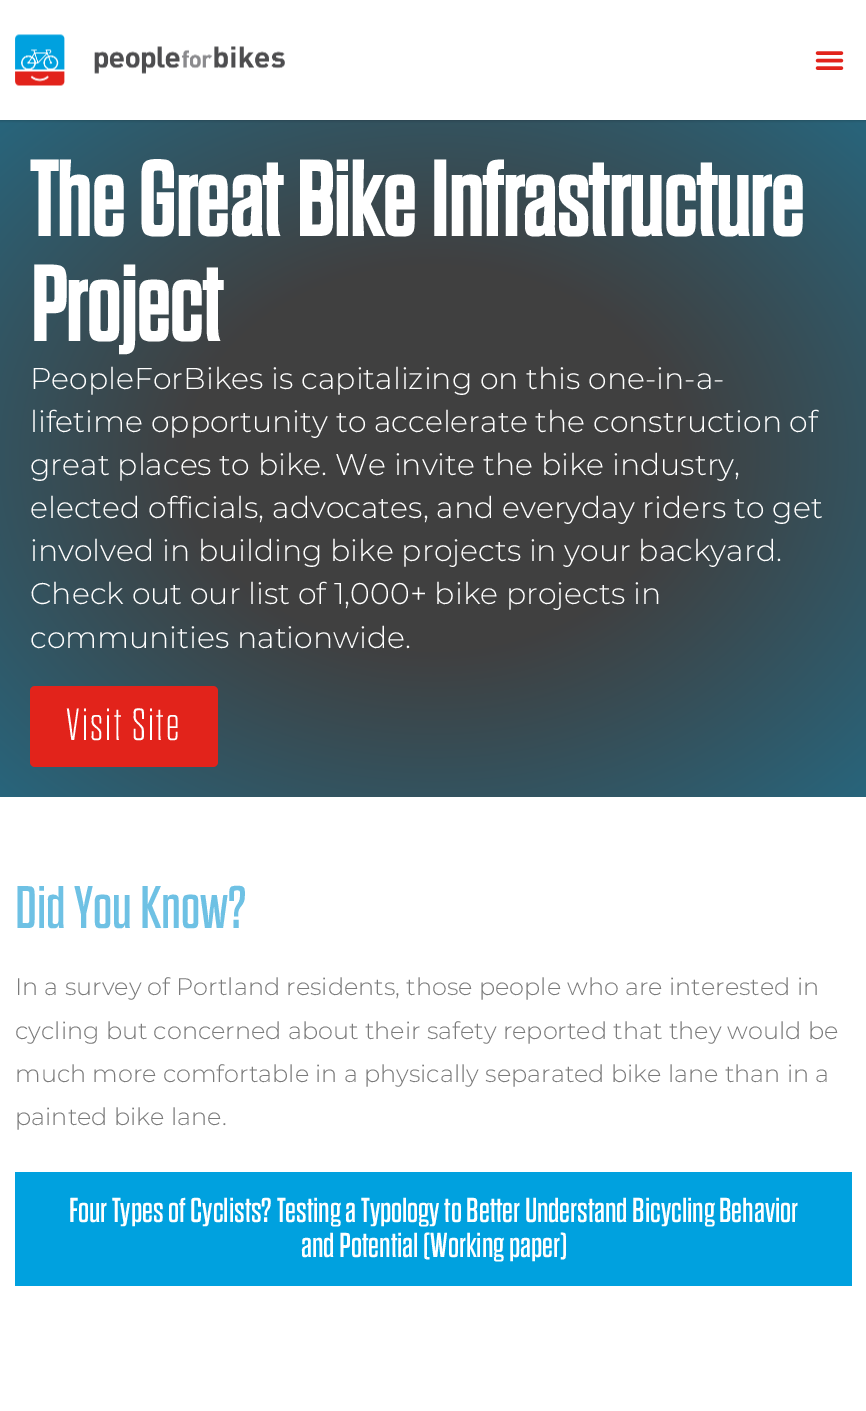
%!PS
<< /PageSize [866 1411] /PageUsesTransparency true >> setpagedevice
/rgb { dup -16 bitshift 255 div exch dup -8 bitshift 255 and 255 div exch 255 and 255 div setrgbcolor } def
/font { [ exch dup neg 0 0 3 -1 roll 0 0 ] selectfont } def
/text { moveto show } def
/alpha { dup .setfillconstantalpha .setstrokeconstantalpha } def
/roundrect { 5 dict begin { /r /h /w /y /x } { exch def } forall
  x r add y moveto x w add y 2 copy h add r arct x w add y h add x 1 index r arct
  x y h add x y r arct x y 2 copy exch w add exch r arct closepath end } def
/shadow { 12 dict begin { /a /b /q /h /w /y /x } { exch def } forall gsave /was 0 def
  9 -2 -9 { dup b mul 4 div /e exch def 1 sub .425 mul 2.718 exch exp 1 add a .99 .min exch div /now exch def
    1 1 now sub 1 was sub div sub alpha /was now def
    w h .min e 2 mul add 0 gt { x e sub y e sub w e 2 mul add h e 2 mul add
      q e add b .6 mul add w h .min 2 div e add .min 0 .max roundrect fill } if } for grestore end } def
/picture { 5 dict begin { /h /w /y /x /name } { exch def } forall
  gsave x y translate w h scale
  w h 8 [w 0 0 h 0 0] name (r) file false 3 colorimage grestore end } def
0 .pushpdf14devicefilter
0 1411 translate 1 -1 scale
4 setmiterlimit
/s1 { /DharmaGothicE-Bold 105 font 16#FFFFFF rgb } def
/s2 { /Montserrat-Light 30 font 16#FFFFFF rgb } def
/s3 { /DharmaGothicE-Regular 60 font 16#6EC1E4 rgb } def
/s4 { /Montserrat-Light 24 font 16#7A7A7A rgb } def
/s5 { /DharmaGothicE-Regular 34.5 font 16#FFFFFF rgb } def
16#FFFFFF rgb
0 0 866 1411 rectfill
gsave 0 120 moveto 866 120 lineto 866 797 lineto 0 797 lineto closepath clip newpath 434 458 translate 613 478 scale
<< /ShadingType 3 /ColorSpace /DeviceRGB /Coords [0 0 0 0 0 1] /Extend [true true] /Function << /FunctionType 3 /Domain [0 1] /Functions [<< /FunctionType 2 /Domain [0 1] /C0 [0.251 0.251 0.251] /C1 [0.251 0.251 0.251] /N 1 >> << /FunctionType 2 /Domain [0 1] /C0 [0.251 0.251 0.251] /C1 [0.157 0.396 0.486] /N 1 >>] /Bounds [0.4] /Encode [0 1 0 1] >> >> shfill grestore
gsave
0 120 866 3 rectclip
16#000000 rgb
0 0 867 120 0 2 0.3 shadow
grestore
(pic1.raw) 15 34 50 52 picture
(pic2.raw) 94 46 191 28 picture
(pic3.raw) 815 51 29 19 picture
s1
(The Great Bike Infrastructure) 30 236 text
(Project) 30 341 text
s2
(PeopleForBikes is capitalizing on this one-in-a-) 30 389 text
(lifetime opportunity to accelerate the construction of) 30 432 text
(great places to bike. We invite the bike industry,) 30 475 text
(elected officials, advocates, and everyday riders to get) 30 518 text
(involved in building bike projects in your backyard.) 30 561 text
(Check out our list of 1,000+ bike projects in) 30 604 text
(communities nationwide.) 30 648 text
16#E2231B rgb
30 686 188 81 5 roundrect fill
/DharmaGothicE-Light 45 font
16#FFFFFF rgb
66 740 moveto 2.25 0 (Visit Site) ashow
s3
(Did You Know?) 15 928 text
s4
(In a survey of Portland residents, those people who are interested in) 15 995 text
(cycling but concerned about their safety reported that they would be) 15 1039 text
(much more comfortable in a physically separated bike lane than in a) 15 1082 text
(painted bike lane.) 15 1125 text
16#00A1DF rgb
15 1172 837 114 rectfill
s5
(Four Types of Cyclists? Testing a Typology to Better Understand Bicycling Behavior) 69 1222 text
(and Potential \(Working paper\)) 301 1257 text
.poppdf14devicefilter showpage
